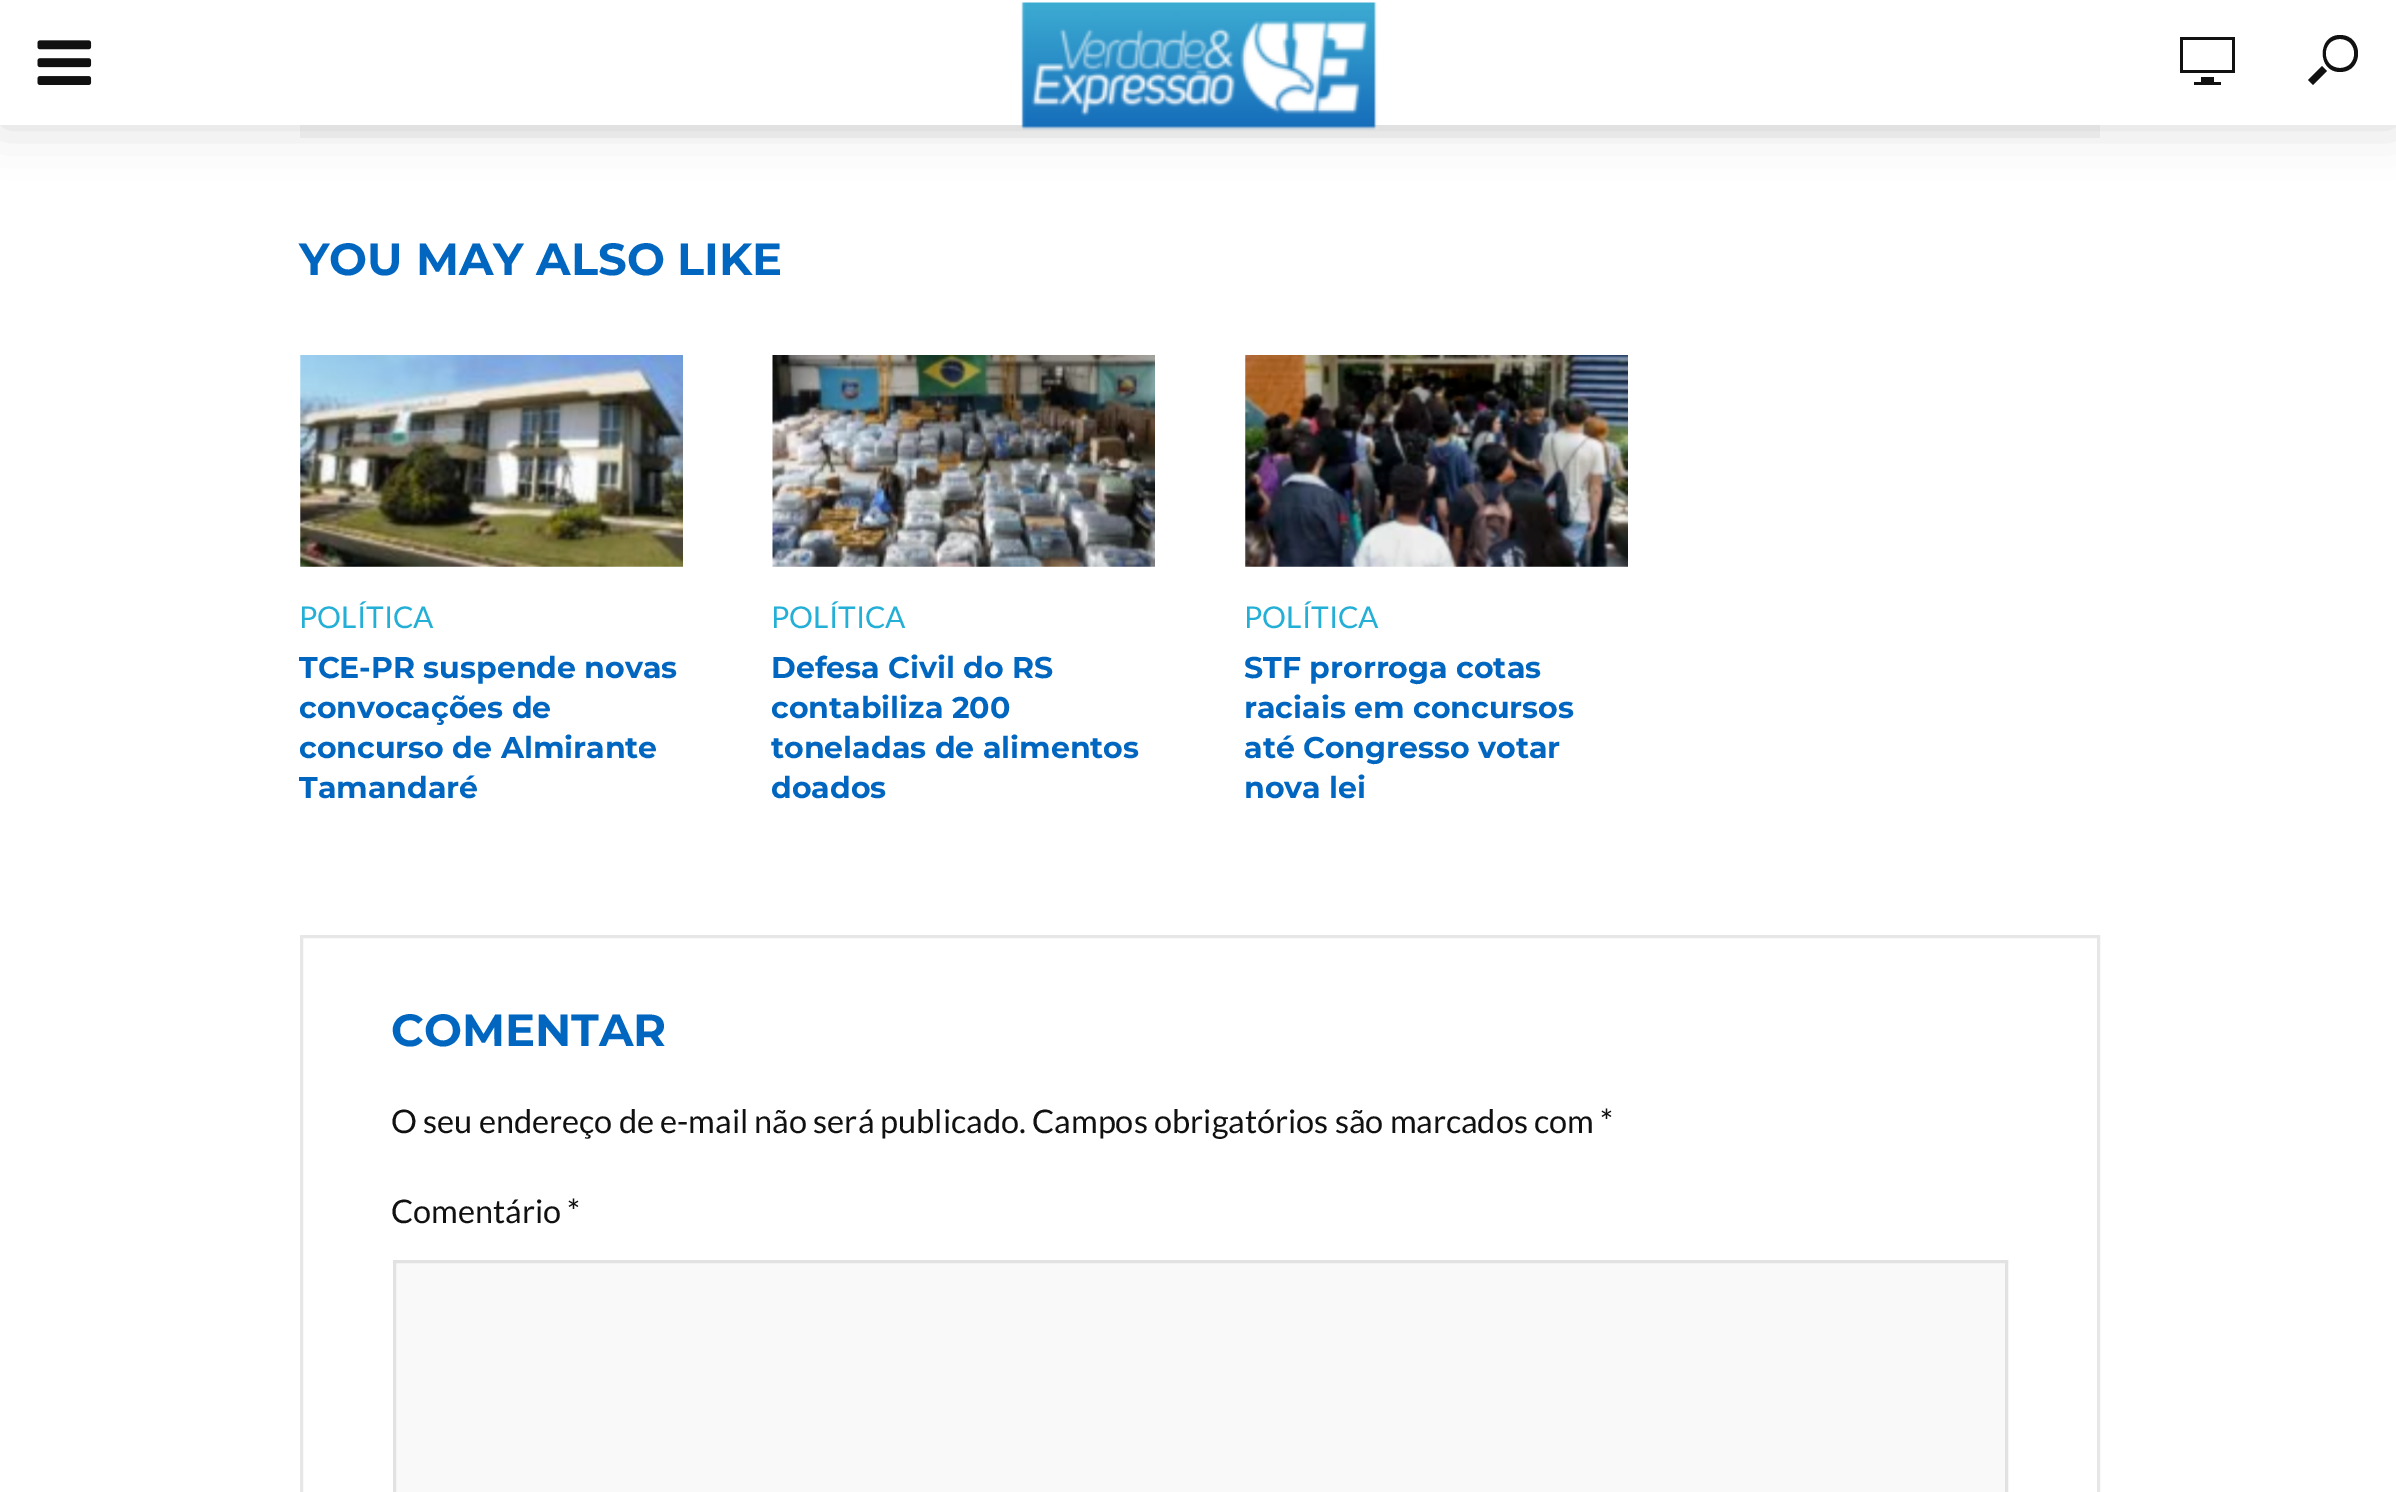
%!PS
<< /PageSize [2396 1492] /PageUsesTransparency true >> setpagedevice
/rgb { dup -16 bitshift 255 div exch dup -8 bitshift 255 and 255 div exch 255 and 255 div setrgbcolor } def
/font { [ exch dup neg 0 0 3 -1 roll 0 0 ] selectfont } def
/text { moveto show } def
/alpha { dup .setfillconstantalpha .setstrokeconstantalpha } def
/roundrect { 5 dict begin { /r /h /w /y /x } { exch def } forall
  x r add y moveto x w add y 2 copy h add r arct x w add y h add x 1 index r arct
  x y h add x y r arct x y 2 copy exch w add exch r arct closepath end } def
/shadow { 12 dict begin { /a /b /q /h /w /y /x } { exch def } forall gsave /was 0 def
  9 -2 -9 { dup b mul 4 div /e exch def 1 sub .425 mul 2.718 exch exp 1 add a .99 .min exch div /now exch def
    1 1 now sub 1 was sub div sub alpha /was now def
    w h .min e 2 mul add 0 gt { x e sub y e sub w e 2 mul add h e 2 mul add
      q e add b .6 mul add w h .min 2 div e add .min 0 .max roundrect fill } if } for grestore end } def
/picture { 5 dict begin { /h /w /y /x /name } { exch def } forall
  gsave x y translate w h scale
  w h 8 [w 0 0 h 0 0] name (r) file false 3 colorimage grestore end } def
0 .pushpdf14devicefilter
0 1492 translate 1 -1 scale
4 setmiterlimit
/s1 { /Montserrat-Bold 45 font 16#0066BF rgb } def
/s2 { /Lato-Regular 30 font 16#24AFD6 rgb } def
/s3 { /Montserrat-Bold 30 font 16#0066BF rgb } def
/s4 { /Lato-Regular 32.5 font 16#111111 rgb } def
16#FFFFFF rgb
0 0 2396 1492 rectfill
16#F4F4F4 rgb
300 125 1800 13 rectfill
16#000000 rgb
0 0 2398 125 0 25 0.15 shadow
16#FFFFFF rgb
0 0 2396 125 rectfill
(pic1.raw) 37 40 55 45 picture
(pic2.raw) 1021 2 357 128 picture
16#111111 rgb
2180 73 moveto 2235 73 lineto 2235 37 lineto 2180 37 lineto closepath 2183 40 moveto 2232 40 lineto 2232 70 lineto 2183 70 lineto closepath 2201 77 moveto 2201 82 lineto 2194 82 lineto 2194 85 lineto 2221 85 lineto 2221 82 lineto 2214 82 lineto 2214 77 lineto closepath fill
2340 35 moveto 2317 35 2317 72 2340 72 curveto 2364 72 2364 35 2340 35 curveto closepath 2340 68 moveto 2321 68 2321 39 2340 39 curveto 2359 39 2359 68 2340 68 curveto closepath 2313 85 moveto 2308 80 lineto 2322 66 lineto 2327 71 lineto closepath fill
s1
(YOU MAY ALSO LIKE) 299 275 text
(pic3.raw) 300 355 383 212 picture
s2
(POLÍTICA) 299 628 text
s3
(TCE-PR suspende novas) 299 678 text
(convocações de) 299 718 text
(concurso de Almirante) 299 758 text
(Tamandaré) 299 798 text
(pic4.raw) 772 355 383 212 picture
s2
(POLÍTICA) 771 628 text
s3
(Defesa Civil do RS) 771 678 text
(contabiliza 200) 771 718 text
(toneladas de alimentos) 771 758 text
(doados) 771 798 text
(pic5.raw) 1245 355 383 212 picture
s2
(POLÍTICA) 1244 628 text
s3
(STF prorroga cotas) 1244 678 text
(raciais em concursos) 1244 718 text
(até Congresso votar) 1244 758 text
(nova lei) 1244 798 text
16#E7E7E7 rgb
3 setlinewidth
301.5 936.5 1797 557 rectstroke
s1
(COMENTAR) 391 1046 text
s4
(O seu endereço de e-mail não será publicado. Campos obrigatórios são marcados com *) 391 1133 text
(Comentário *) 391 1223 text
16#F9F9F9 rgb
394.5 1261.5 moveto 2006.5 1261.5 lineto 2006.5 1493.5 lineto 394.5 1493.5 lineto closepath gsave fill grestore
16#E2E2E2 rgb
stroke
.poppdf14devicefilter showpage
